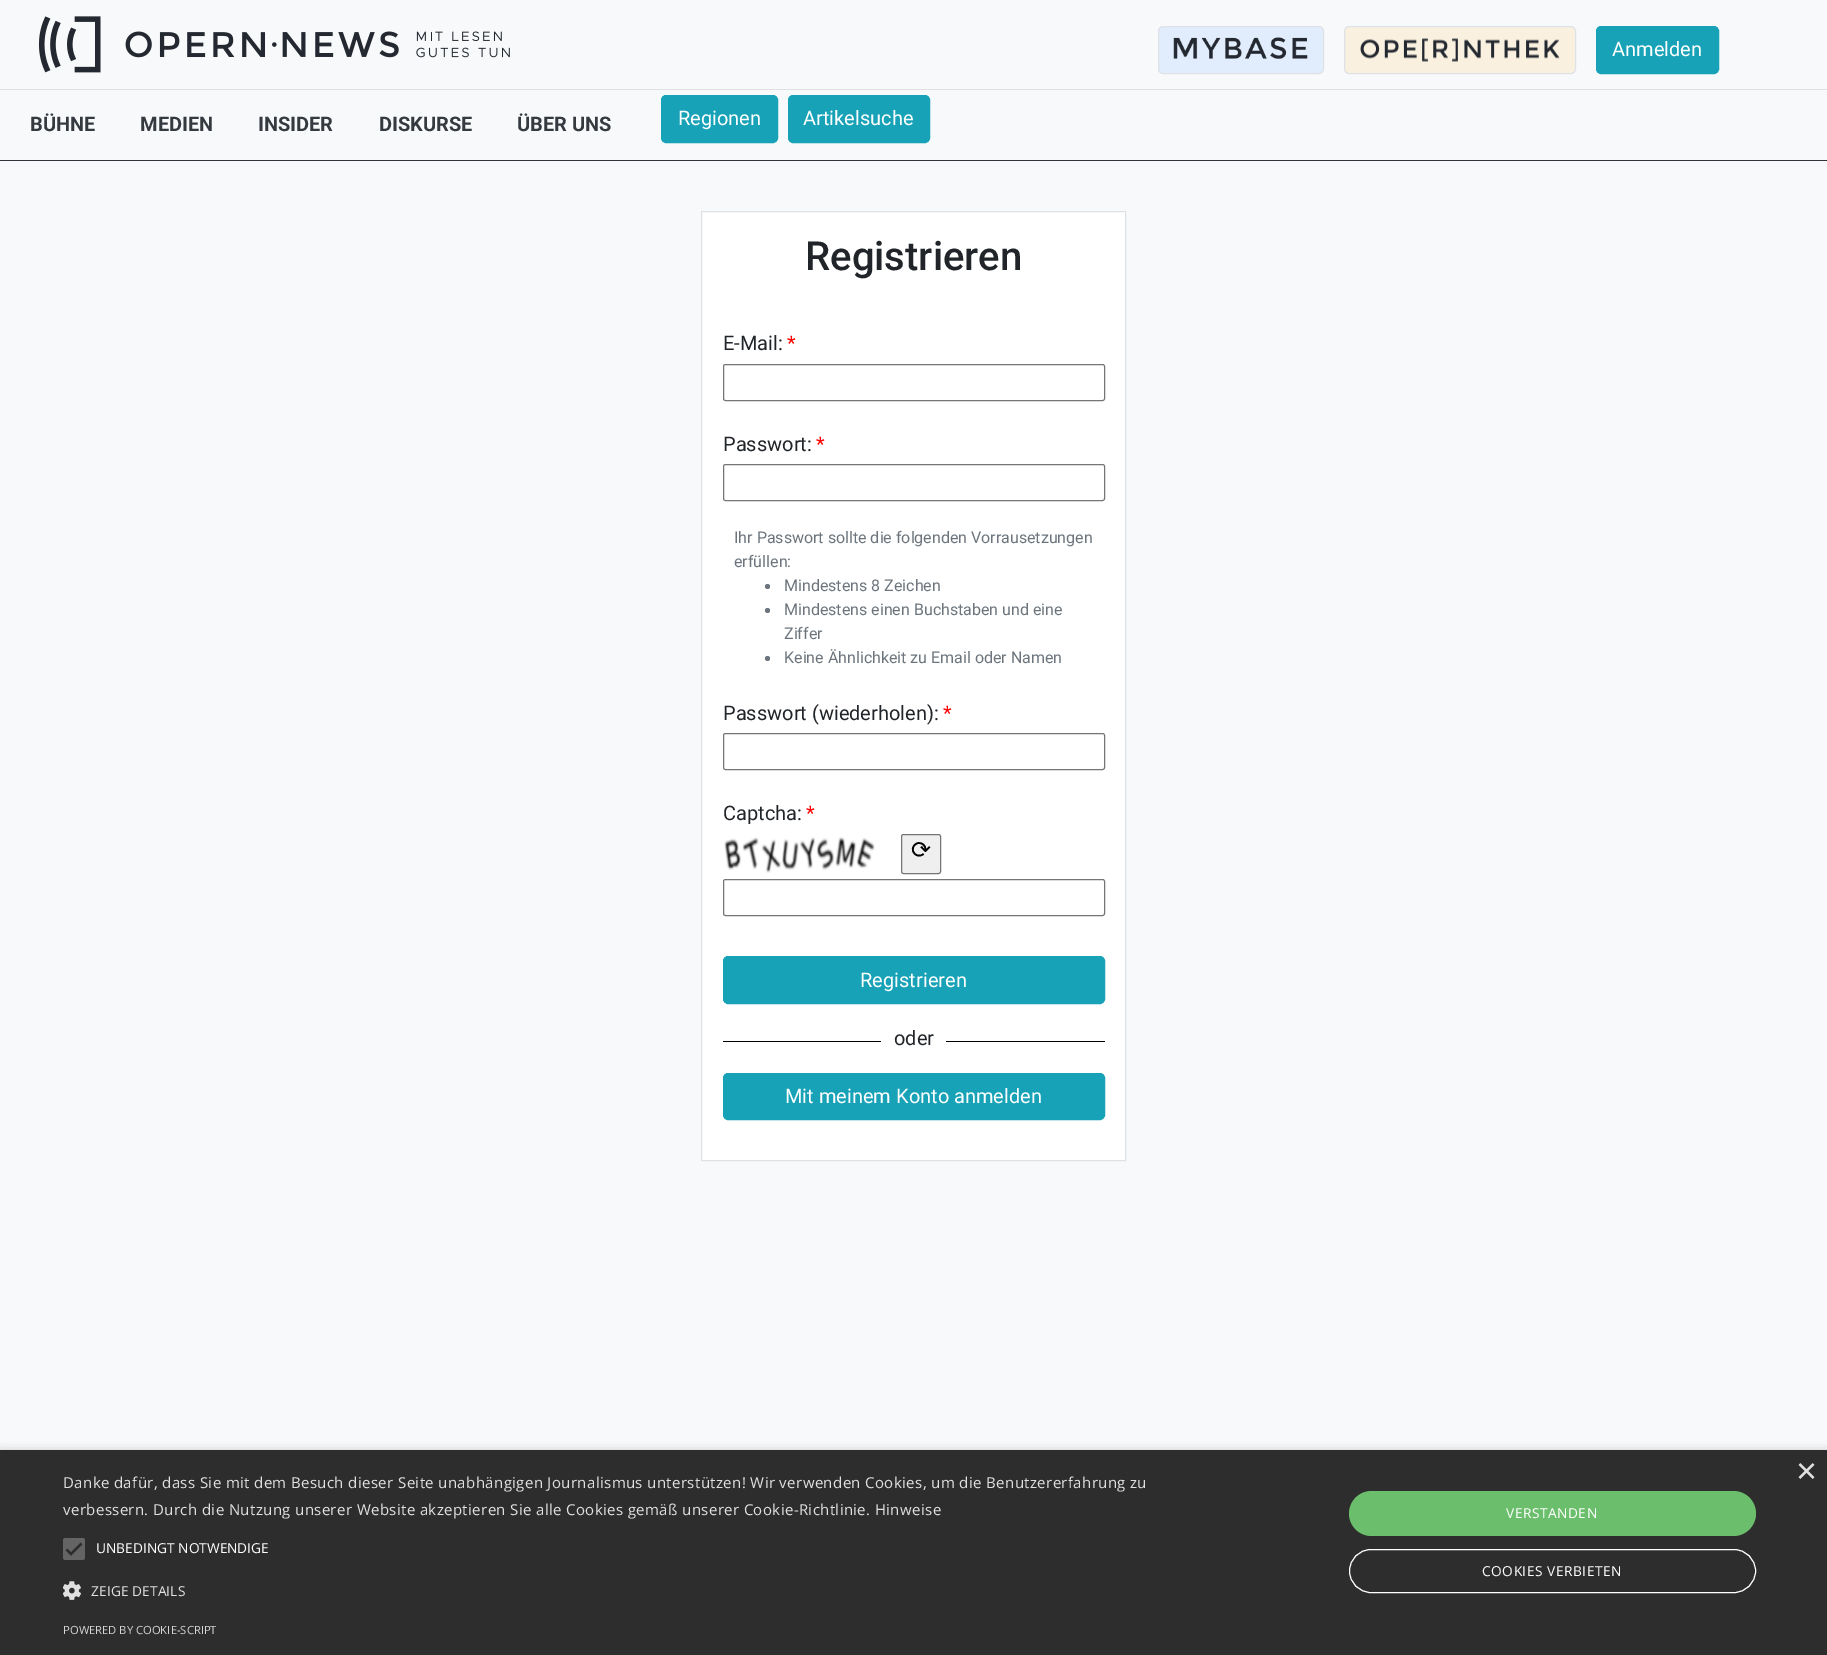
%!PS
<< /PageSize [1827 1655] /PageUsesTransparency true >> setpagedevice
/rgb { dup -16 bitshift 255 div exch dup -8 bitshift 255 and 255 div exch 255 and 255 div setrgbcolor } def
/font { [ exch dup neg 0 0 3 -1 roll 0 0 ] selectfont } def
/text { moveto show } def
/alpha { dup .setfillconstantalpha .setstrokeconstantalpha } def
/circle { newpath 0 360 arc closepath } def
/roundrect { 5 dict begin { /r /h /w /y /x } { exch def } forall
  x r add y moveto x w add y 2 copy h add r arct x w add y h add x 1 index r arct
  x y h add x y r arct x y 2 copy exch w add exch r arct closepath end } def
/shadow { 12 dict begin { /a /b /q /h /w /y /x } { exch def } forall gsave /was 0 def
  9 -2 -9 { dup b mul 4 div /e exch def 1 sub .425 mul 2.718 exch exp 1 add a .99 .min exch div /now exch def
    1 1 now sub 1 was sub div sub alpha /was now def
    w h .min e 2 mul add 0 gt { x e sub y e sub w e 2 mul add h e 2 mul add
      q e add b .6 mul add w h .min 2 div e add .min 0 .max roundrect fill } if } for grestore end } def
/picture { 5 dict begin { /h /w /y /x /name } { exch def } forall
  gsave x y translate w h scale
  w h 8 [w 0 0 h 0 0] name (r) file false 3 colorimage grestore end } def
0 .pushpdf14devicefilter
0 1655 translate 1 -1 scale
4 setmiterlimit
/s1 { /Roboto-Regular 20 font 16#FFFFFF rgb } def
/s2 { /Roboto-Bold 20 font 16#343A40 rgb } def
/s3 { /Roboto-Medium 40 font 16#212529 rgb } def
/s4 { /Roboto-Regular 20 font 16#212529 rgb } def
/s5 { /Roboto-Regular 20 font 16#FF0000 rgb } def
/s6 { /Roboto-Regular 16 font 16#6C757D rgb } def
/s7 { /DejaVuSans-Regular 24 font 16#000000 rgb } def
/s8 { /LiberationSans-Regular 36 font 16#E0E0E0 rgb } def
/s9 { /OpenSans-Regular 13.75 font 16#FFFFFF rgb } def
/s10 { /OpenSans-Regular 11.25 font 16#D5D5D5 rgb } def
16#F8F9FA rgb
0 0 1827 1655 rectfill
(pic1.raw) 39 16 471 57 picture
16#E1ECFC rgb
1158.5 26.5 165 47 4.5 roundrect gsave fill grestore
16#DEE2E6 rgb
stroke
(pic2.raw) 1173 37 135 22 picture
16#FAF0DF rgb
1344.5 26.5 231 47 4.5 roundrect gsave fill grestore
16#DEE2E6 rgb
stroke
(pic3.raw) 1360 38 200 24 picture
16#17A2B8 rgb
1596.5 26.5 122 47 4.5 roundrect gsave fill grestore
stroke
s1
(Anmelden) 1612 56 text
16#DFE0E1 rgb
0 89 1827 1 rectfill
s2
(BÜHNE) 30 131 text
(MEDIEN) 140 131 text
(INSIDER) 258 131 text
(DISKURSE) 379 131 text
(ÜBER UNS) 517 131 text
16#17A2B8 rgb
661.5 95.5 116 47 4.5 roundrect gsave fill grestore
stroke
s1
(Regionen) 678 125 text
16#17A2B8 rgb
788.5 95.5 141 47 4.5 roundrect gsave fill grestore
stroke
s1
(Artikelsuche) 803 125 text
16#2F343A rgb
0 160 1827 1 rectfill
16#FFFFFF rgb
701.5 211.5 moveto 1125.5 211.5 lineto 1125.5 1160.5 lineto 701.5 1160.5 lineto closepath gsave fill grestore
16#DEE2E6 rgb
stroke
s3
(Registrieren) 805 270 text
s4
(E-Mail:) 723 350 text
s5
(*) 787 350 text
16#767676 rgb
723.5 364.5 381 36 2 roundrect stroke
s4
(Passwort:) 723 451 text
s5
(*) 816 451 text
16#767676 rgb
723.5 464.5 381 36 2 roundrect stroke
s6
(Ihr Passwort sollte die folgenden Vorrausetzungen) 734 543 text
(erfüllen:) 734 567 text
767.5 586.5 2.5 circle fill
(Mindestens 8 Zeichen) 784 591 text
767.5 610.5 2.5 circle fill
(Mindestens einen Buchstaben und eine) 784 615 text
(Ziffer) 784 639 text
767.5 658.5 2.5 circle fill
(Keine Ähnlichkeit zu Email oder Namen) 784 663 text
s4
(Passwort \(wiederholen\):) 723 720 text
s5
(*) 943 720 text
16#767676 rgb
723.5 733.5 381 36 2 roundrect stroke
s4
(Captcha:) 723 820 text
s5
(*) 806 820 text
(pic4.raw) 724 837 151 36 picture
16#767676 rgb
723.5 879.5 381 36 2 roundrect stroke
16#EFEFEF rgb
901.5 834.5 39 39 2 roundrect gsave fill grestore
16#767676 rgb
stroke
s7
(⟳) 911 858 text
16#17A2B8 rgb
723.5 956.5 381 47 4.5 roundrect gsave fill grestore
stroke
s1
(Registrieren) 860 987 text
16#000000 rgb
723 1041 382 1 rectfill
16#FFFFFF rgb
881 1041 65 1 rectfill
s4
(oder) 894 1045 text
16#17A2B8 rgb
723.5 1073.5 381 46 4.5 roundrect gsave fill grestore
stroke
s1
(Mit meinem Konto anmelden) 785 1103 text
16#000000 rgb
1 1453 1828 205 0 5 0.35 shadow
16#2D2D2D rgb
0 1450 1827 205 rectfill
s8
(×) 1796 1483 text
/OpenSans-Regular 15 font
63 1488 moveto 0.38 0 (Danke dafür, dass Sie mit dem Besuch dieser Seite unabhängigen Journalismus unterstützen! Wir verwenden Cookies, um die Benutzererfahrung zu) ashow
63 1515 moveto 0.38 0 (verbessern. Durch die Nutzung unserer Website akzeptieren Sie alle Cookies gemäß unserer Cookie-Richtlinie. Hinweise) ashow
16#646464 rgb
63 1538 22 22 2.5 roundrect fill
16#2D2D2D rgb
2.3 setlinewidth
66.5 1549.5 moveto 71 1554 lineto 81.5 1543.5 lineto stroke
s9
(UNBEDINGT NOTWENDIGE) 96 1553 text
(pic5.raw) 63 1581 18 19 picture
16#E0E0E0 rgb
91 1596 moveto 0.1 0 (ZEIGE DETAILS) ashow
16#6BBE6B rgb
1349 1491 407 45 22.5 roundrect fill
16#FFFFFF rgb
1506 1518 moveto 0.5 0 (VERSTANDEN) ashow
1 setlinewidth
1349.5 1549.5 406 43 21.5 roundrect stroke
1482 1576 moveto 0.5 0 (COOKIES VERBIETEN) ashow
s10
(POWERED BY COOKIE-SCRIPT) 63 1634 text
.poppdf14devicefilter showpage
